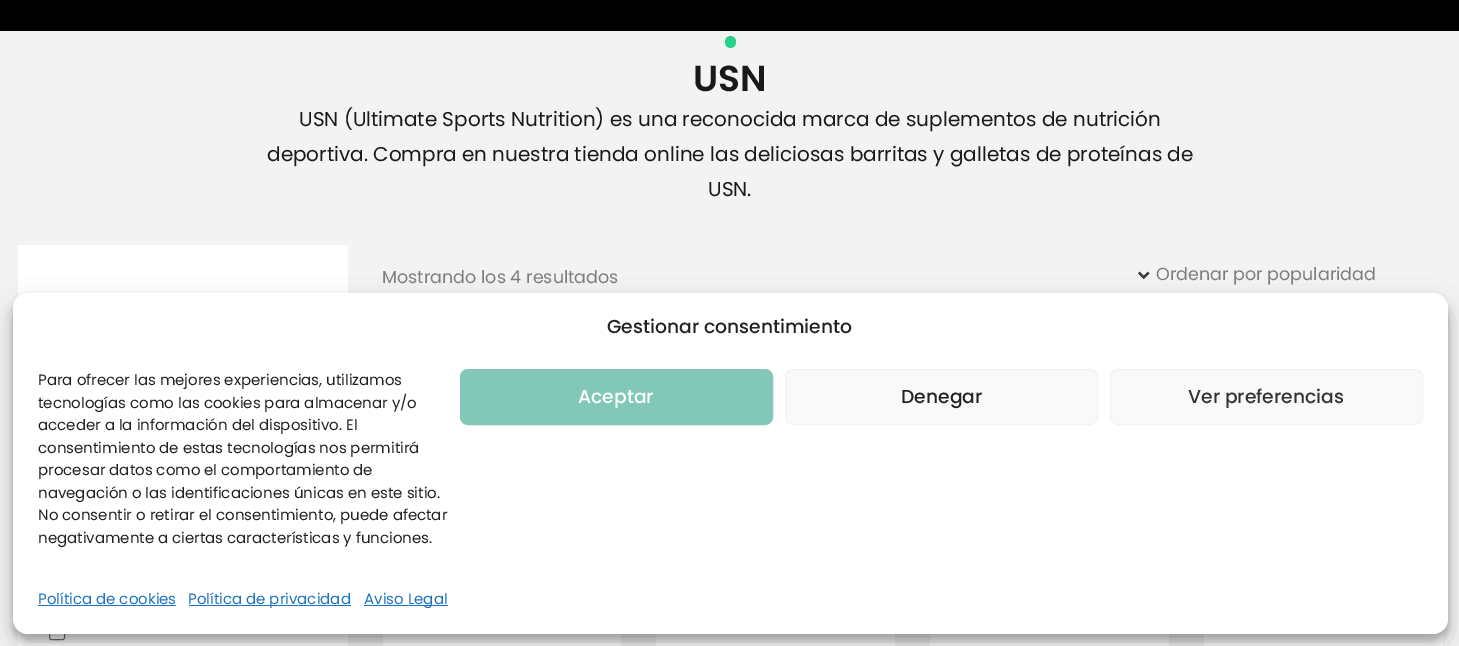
%!PS
<< /PageSize [1459 646] /PageUsesTransparency true >> setpagedevice
/rgb { dup -16 bitshift 255 div exch dup -8 bitshift 255 and 255 div exch 255 and 255 div setrgbcolor } def
/font { [ exch dup neg 0 0 3 -1 roll 0 0 ] selectfont } def
/text { moveto show } def
/alpha { dup .setfillconstantalpha .setstrokeconstantalpha } def
/roundrect { 5 dict begin { /r /h /w /y /x } { exch def } forall
  x r add y moveto x w add y 2 copy h add r arct x w add y h add x 1 index r arct
  x y h add x y r arct x y 2 copy exch w add exch r arct closepath end } def
/shadow { 12 dict begin { /a /b /q /h /w /y /x } { exch def } forall gsave /was 0 def
  9 -2 -9 { dup b mul 4 div /e exch def 1 sub .425 mul 2.718 exch exp 1 add a .99 .min exch div /now exch def
    1 1 now sub 1 was sub div sub alpha /was now def
    w h .min e 2 mul add 0 gt { x e sub y e sub w e 2 mul add h e 2 mul add
      q e add b .6 mul add w h .min 2 div e add .min 0 .max roundrect fill } if } for grestore end } def
/picture { 5 dict begin { /h /w /y /x /name } { exch def } forall
  gsave x y translate w h scale
  w h 8 [w 0 0 h 0 0] name (r) file false 3 colorimage grestore end } def
0 .pushpdf14devicefilter
0 646 translate 1 -1 scale
4 setmiterlimit
/s1 { /Poppins-SemiBold 36 font 16#191919 rgb } def
/s2 { /Poppins-Regular 20 font 16#191919 rgb } def
/s3 { /Poppins-Regular 17.5 font 16#7E7E7E rgb } def
/s4 { /Poppins-Medium 18.75 font 16#222222 rgb } def
/s5 { /Poppins-Regular 15 font 16#222222 rgb } def
/s6 { /Poppins-Medium 18.75 font 16#FFFFFF rgb } def
/s7 { /Poppins-Medium 18.75 font 16#333333 rgb } def
/s8 { /Poppins-Regular 15 font 16#1E73BE rgb } def
16#F3F3F3 rgb
0 0 1459 646 rectfill
16#000000 rgb
0 0 1459 31 rectfill
16#27D18B rgb
725 36 11 12 5.5 roundrect fill
s1
(USN) 693 91 text
s2
(USN \(Ultimate Sports Nutrition\) es una reconocida marca de suplementos de nutrición) 299 126 text
(deportiva. Compra en nuestra tienda online las deliciosas barritas y galletas de proteínas de) 267 161 text
(USN.) 708 196 text
16#FFFFFF rgb
18 245 330 401 rectfill
16#767676 rgb
49.5 624.5 15 15 2 roundrect stroke
s3
(Mostrando los 4 resultados) 382 283 text
(pic1.raw) 1138 271 12 9 picture
(Ordenar por popularidad) 1156 280 text
16#FFFFFF rgb
383 634 238 12 rectfill
656 634 239 12 rectfill
930 634 239 12 rectfill
1204 630 239 16 rectfill
16#000000 rgb
13 300 1435 341 15 4 0.23 shadow
13 305 1435 341 15 12.5 0.19 shadow
16#FFFFFF rgb
13 293 1435 341 15 roundrect fill
s4
(Gestionar consentimiento) 607 333 text
s5
(Para ofrecer las mejores experiencias, utilizamos) 38 385 text
(tecnologías como las cookies para almacenar y/o) 38 408 text
(acceder a la información del dispositivo. El) 38 430 text
(consentimiento de estas tecnologías nos permitirá) 38 453 text
(procesar datos como el comportamiento de) 38 475 text
(navegación o las identificaciones únicas en este sitio.) 38 498 text
(No consentir o retirar el consentimiento, puede afectar) 38 520 text
(negativamente a ciertas características y funciones.) 38 543 text
16#83C7B8 rgb
460.5 369.5 312 55 7.5 roundrect gsave fill grestore
stroke
s6
(Aceptar) 578 403 text
16#F9F9F9 rgb
785.5 369.5 312 55 7.5 roundrect gsave fill grestore
16#F2F2F2 rgb
stroke
s4
(Denegar) 901 403 text
16#F9F9F9 rgb
1110.5 369.5 312 55 7.5 roundrect gsave fill grestore
16#F2F2F2 rgb
stroke
s7
(Ver preferencias) 1188 403 text
s8
(Política de cookies) 38 604 text
38 605 138 1 rectfill
189 605 162 1 rectfill
(Política de privacidad) 188 604 text
364 605 84 1 rectfill
(Aviso Legal) 364 604 text
.poppdf14devicefilter showpage
